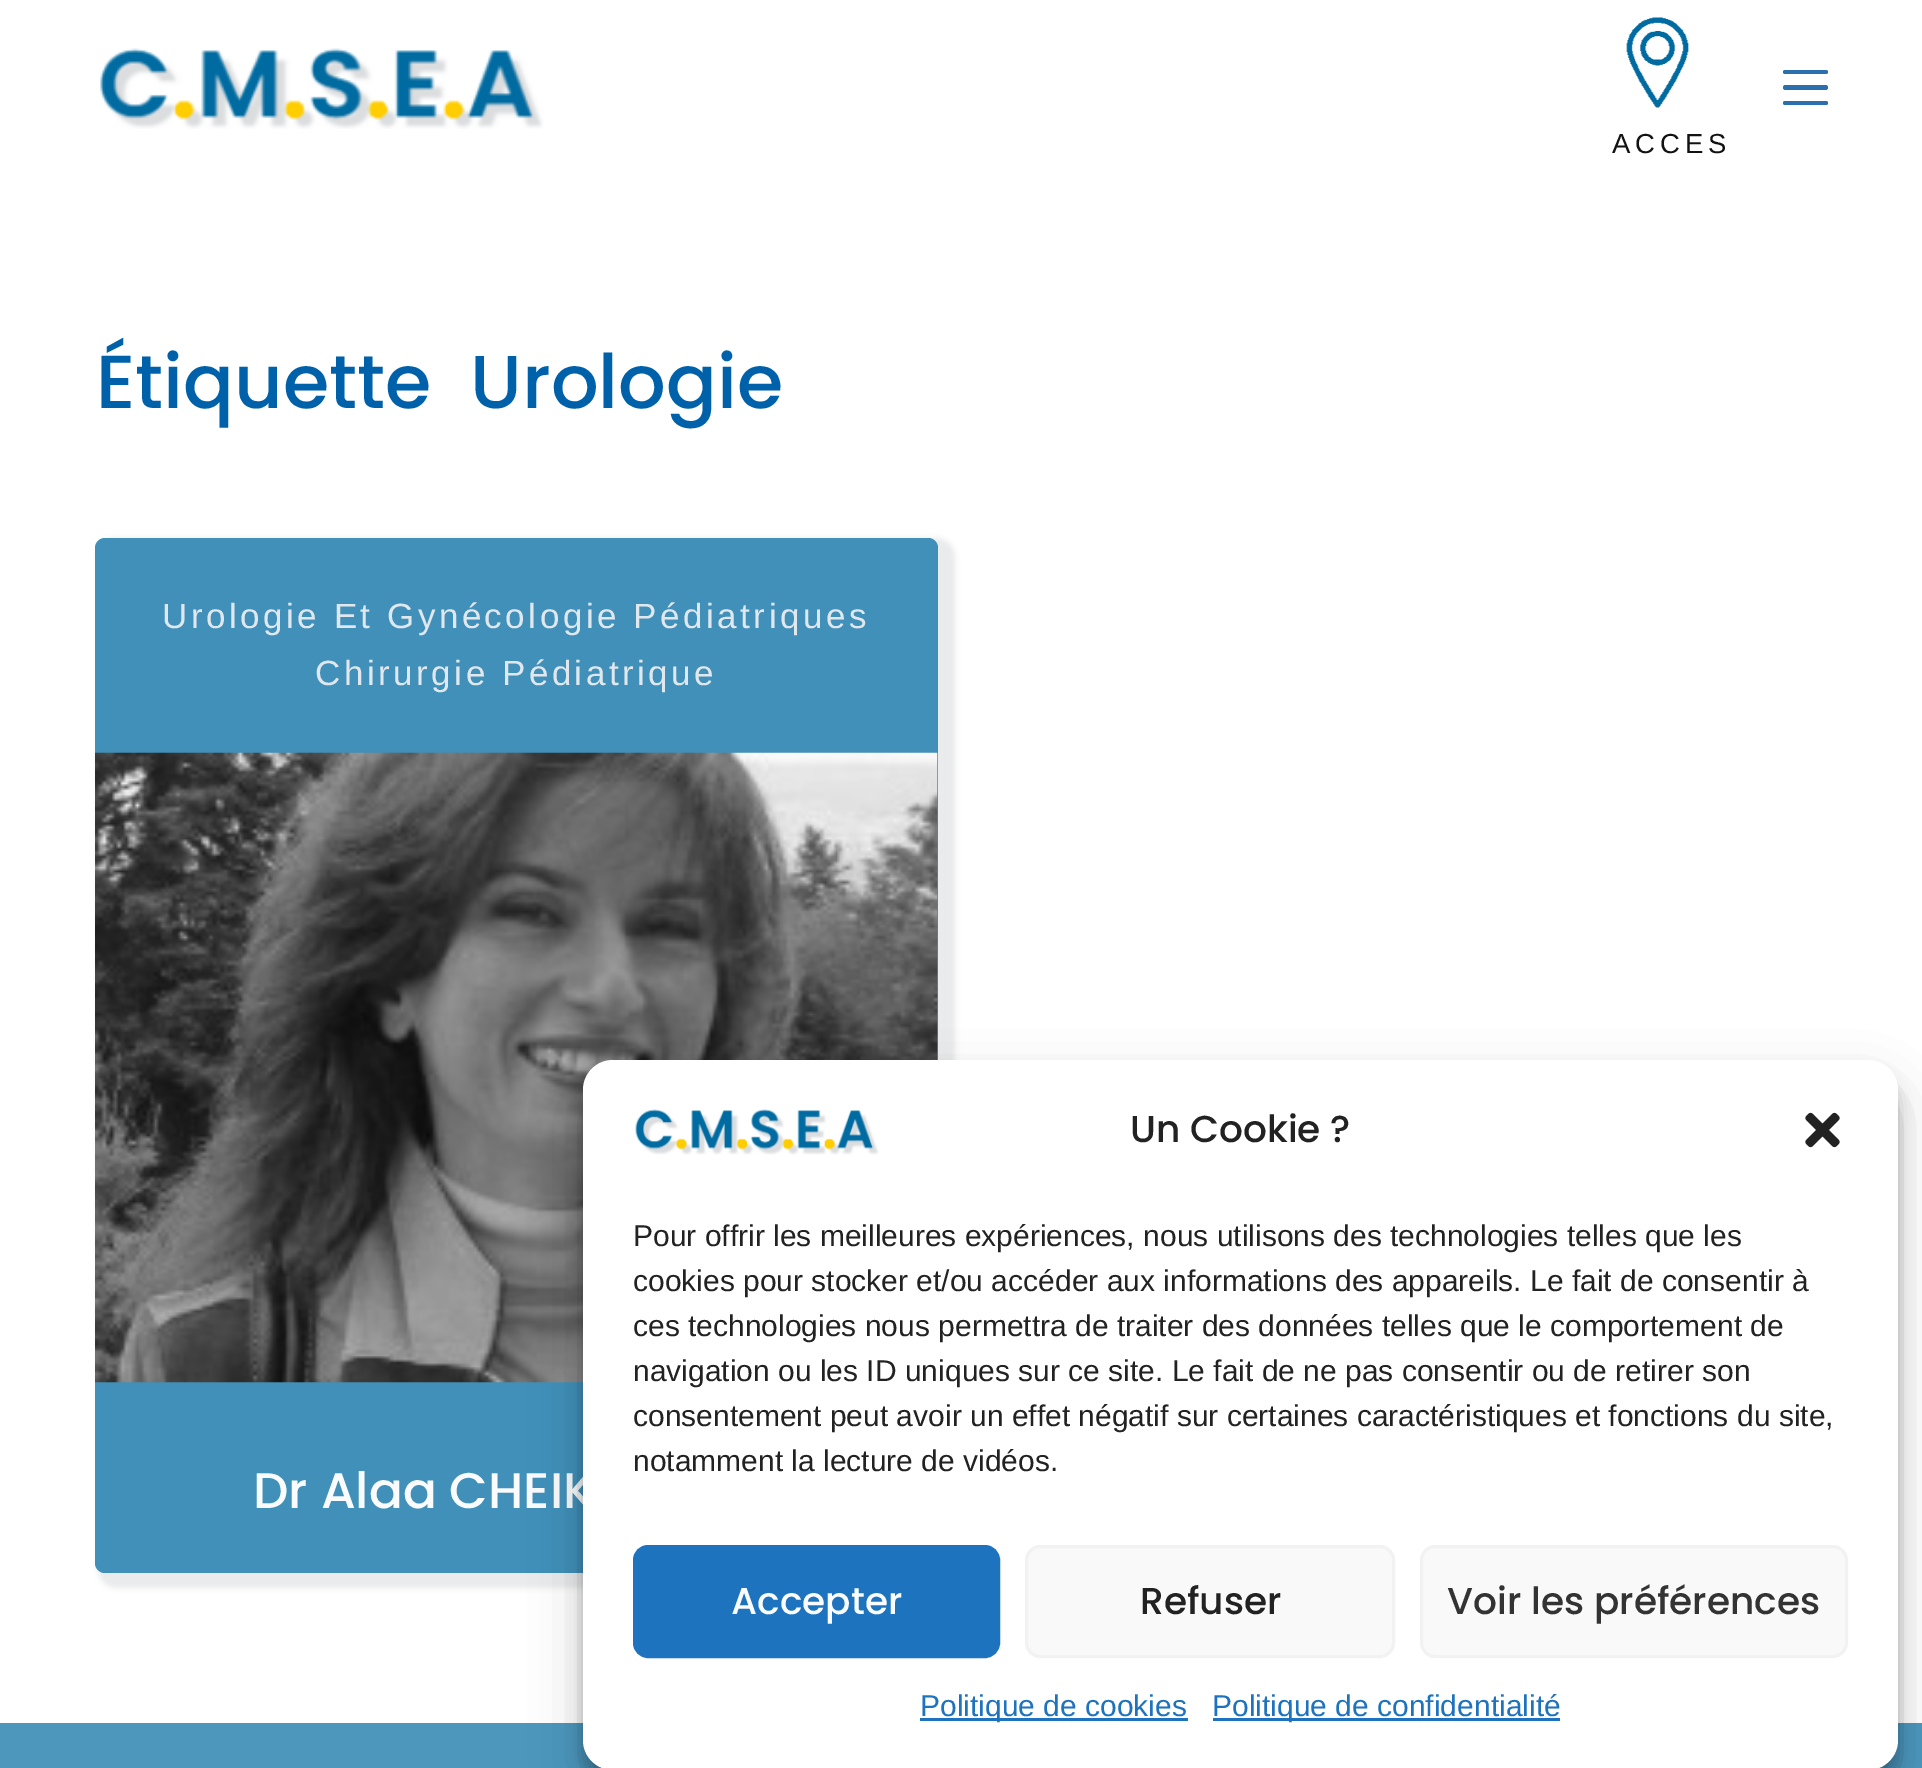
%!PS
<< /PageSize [1922 1768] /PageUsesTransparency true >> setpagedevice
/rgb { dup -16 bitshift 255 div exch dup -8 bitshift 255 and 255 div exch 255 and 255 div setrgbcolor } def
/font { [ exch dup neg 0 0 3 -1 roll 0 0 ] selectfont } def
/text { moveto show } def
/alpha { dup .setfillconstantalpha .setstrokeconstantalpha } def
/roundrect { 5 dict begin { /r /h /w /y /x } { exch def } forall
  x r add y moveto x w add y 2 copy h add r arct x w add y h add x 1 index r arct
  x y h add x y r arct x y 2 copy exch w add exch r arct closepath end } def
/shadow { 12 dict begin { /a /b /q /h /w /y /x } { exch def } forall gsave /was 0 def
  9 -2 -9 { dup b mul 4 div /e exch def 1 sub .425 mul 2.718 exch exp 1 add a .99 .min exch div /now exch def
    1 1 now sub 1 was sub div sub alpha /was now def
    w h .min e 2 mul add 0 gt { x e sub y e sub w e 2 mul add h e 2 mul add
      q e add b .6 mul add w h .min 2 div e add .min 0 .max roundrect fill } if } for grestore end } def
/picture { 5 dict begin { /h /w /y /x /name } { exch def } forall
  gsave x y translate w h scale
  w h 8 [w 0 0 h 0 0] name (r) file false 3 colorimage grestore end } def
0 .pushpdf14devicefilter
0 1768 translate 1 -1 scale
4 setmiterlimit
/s1 { /Poppins-Medium 75 font 16#0061AB rgb } def
/s2 { /Poppins-Medium 50 font 16#FAFBFC rgb } def
/s3 { /Poppins-Medium 37.5 font 16#222222 rgb } def
/s4 { /LiberationSans-Regular 30 font 16#222222 rgb } def
/s5 { /Poppins-Medium 37.5 font 16#FAFBFC rgb } def
/s6 { /Poppins-Medium 37.5 font 16#333333 rgb } def
/s7 { /LiberationSans-Regular 30 font 16#1E73BE rgb } def
16#FFFFFF rgb
0 0 1922 1768 rectfill
(pic1.raw) 100 48 443 81 picture
16#2D6FAC rgb
1783 70 45 4 2 roundrect fill
1783 85 45 5 2.5 roundrect fill
1783 101 45 4 2 roundrect fill
(pic2.raw) 1626 17 63 91 picture
/LiberationSans-Regular 27.5 font
16#121212 rgb
1612 153 moveto 5 0 (ACCES) ashow
s1
(Étiquette) 96 408 text
(Urologie) 470 408 text
gsave
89 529 moveto 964 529 lineto 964 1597 lineto 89 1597 lineto closepath 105 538 moveto 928 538 lineto 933.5 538 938 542.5 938 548 curveto 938 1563 lineto 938 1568.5 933.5 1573 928 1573 curveto 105 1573 lineto 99.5 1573 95 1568.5 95 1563 curveto 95 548 lineto 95 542.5 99.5 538 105 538 curveto closepath eoclip newpath
16#192A3D rgb
98 538 857 1050 18 2.5 0.09 shadow
grestore
0.75 alpha
16#006BA1 rgb
95 538 843 1035 10 roundrect fill
/LiberationSans-Regular 35 font
1 alpha
16#E1E8ED rgb
162 628 moveto 3.5 0 (Urologie Et Gynécologie Pédiatriques) ashow
315 685 moveto 3.5 0 (Chirurgie Pédiatrique) ashow
(pic3.raw) 95 752 843 631 picture
s2
(Dr Alaa CHEIK) 253 1508 text
16#4D97BD rgb
0 1723 1922 45 rectfill
16#000000 rgb
583 1075 1315 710 30 7.5 0.23 shadow
583 1085 1315 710 30 25 0.19 shadow
16#FFFFFF rgb
583 1060 1315 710 30 roundrect fill
(pic4.raw) 635 1109 244 46 picture
s3
(Un Cookie ?) 1130 1142 text
(pic5.raw) 1805 1112 35 36 picture
s4
(Pour offrir les meilleures expériences, nous utilisons des technologies telles que les) 633 1246 text
(cookies pour stocker et/ou accéder aux informations des appareils. Le fait de consentir à) 633 1291 text
(ces technologies nous permettra de traiter des données telles que le comportement de) 633 1336 text
(navigation ou les ID uniques sur ce site. Le fait de ne pas consentir ou de retirer son) 633 1381 text
(consentement peut avoir un effet négatif sur certaines caractéristiques et fonctions du site,) 633 1426 text
(notamment la lecture de vidéos.) 633 1471 text
16#1E73BE rgb
634.5 1546.5 364 110 13.5 roundrect gsave fill grestore
3 setlinewidth
stroke
s5
(Accepter) 731 1614 text
16#F9F9F9 rgb
1026.5 1546.5 367 110 13.5 roundrect gsave fill grestore
16#F2F2F2 rgb
stroke
s3
(Refuser) 1140 1614 text
16#F9F9F9 rgb
1421.5 1546.5 425 110 13.5 roundrect gsave fill grestore
16#F2F2F2 rgb
stroke
s6
(Voir les préférences) 1447 1614 text
16#1E73BE rgb
920 1718 268 3 rectfill
s7
(Politique de cookies) 920 1716 text
1213 1718 347 3 rectfill
(Politique de confidentialité) 1212 1716 text
.poppdf14devicefilter showpage
